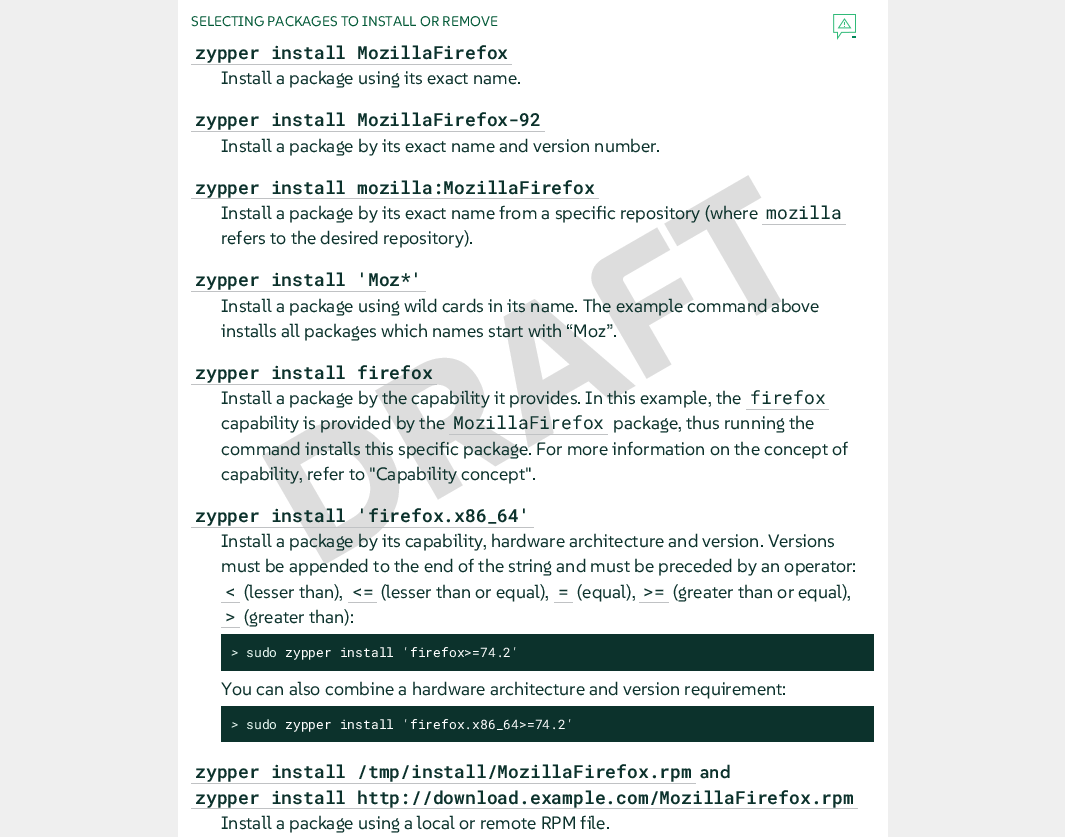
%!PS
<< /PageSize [1065 837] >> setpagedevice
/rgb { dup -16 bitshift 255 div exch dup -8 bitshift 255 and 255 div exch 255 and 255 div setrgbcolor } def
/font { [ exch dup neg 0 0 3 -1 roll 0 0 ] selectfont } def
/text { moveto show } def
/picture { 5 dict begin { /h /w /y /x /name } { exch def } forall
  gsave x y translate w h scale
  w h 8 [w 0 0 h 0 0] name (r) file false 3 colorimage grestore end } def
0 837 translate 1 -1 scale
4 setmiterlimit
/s1 { /SUSE-Regular 14 font 16#025937 rgb } def
/s2 { /RobotoMono-SemiBold 18 font 16#0C322C rgb } def
/s3 { /SUSE-Regular 18 font 16#0C322C rgb } def
/s4 { /RobotoMono-Regular 18 font 16#0C322C rgb } def
/s5 { /RobotoMono-Italic 13 font 16#EAFAF4 rgb } def
/s6 { /RobotoMono-Regular 13 font 16#EAFAF4 rgb } def
/s7 { /RobotoMono-Regular 13 font 16#FFFFFF rgb } def
/s8 { /SUSE-SemiBold 18 font 16#0C322C rgb } def
16#FFFFFF rgb
0 0 1065 837 rectfill
16#EFEFEF rgb
0 0 178 837 rectfill
s1
(SELECTING PACKAGES TO INSTALL OR REMOVE) 191 26 text
(pic1.raw) 833 14 23 26 picture
16#008657 rgb
852 36 4 2 rectfill
16#C0C2C4 rgb
191 64 321 1 rectfill
s2
(zypper install MozillaFirefox) 195 59 text
s3
(Install a package using its exact name.) 221 84 text
16#C0C2C4 rgb
191 131 354 1 rectfill
s2
(zypper install MozillaFirefox-92) 195 126 text
s3
(Install a package by its exact name and version number.) 221 152 text
/SUSE-ExtraBold 180 font
16#DDDDDD rgb
gsave 314 571 translate -30 rotate 0 0 moveto (DRAFT) show grestore
16#C0C2C4 rgb
191 198 408 1 rectfill
s2
(zypper install mozilla:MozillaFirefox) 195 194 text
s3
(Install a package by its exact name from a specific repository \(where) 221 219 text
16#C0C2C4 rgb
762 224 84 1 rectfill
s4
(mozilla) 766 219 text
s3
(refers to the desired repository\).) 221 244 text
16#C0C2C4 rgb
191 291 235 1 rectfill
s2
(zypper install 'Moz*') 195 286 text
s3
(Install a package using wild cards in its name. The example command above) 221 312 text
(installs all packages which names start with “Moz) 221 337 text
(”) 606 337 text
(.) 613 337 text
16#C0C2C4 rgb
191 384 246 1 rectfill
s2
(zypper install firefox) 195 379 text
s3
(Install a package by the capability it provides. In this example, the) 221 404 text
16#C0C2C4 rgb
746 409 83 1 rectfill
s4
(firefox) 750 404 text
s3
(capability is provided by the) 221 429 text
16#C0C2C4 rgb
449 434 159 1 rectfill
s4
(MozillaFirefox) 453 429 text
s3
(package, thus running the) 613 429 text
(command installs this specific package. For more information on the concept of) 221 455 text
(capability, refer to "Capability concept".) 221 480 text
16#C0C2C4 rgb
191 527 343 1 rectfill
s2
(zypper install 'firefox.x86_64') 195 522 text
s3
(Install a package by its capability, hardware architecture and version. Versions) 221 547 text
(must be appended to the end of the string and must be preceded by an operator:) 221 572 text
16#C0C2C4 rgb
221 602 19 1 rectfill
s4
(<) 225 598 text
s3
(\(lesser than\),) 244 598 text
16#C0C2C4 rgb
348 602 29 1 rectfill
s4
(<=) 352 598 text
s3
(\(lesser than or equal\),) 381 598 text
16#C0C2C4 rgb
554 602 19 1 rectfill
s4
(=) 558 598 text
s3
(\(equal\),) 577 598 text
16#C0C2C4 rgb
639 602 30 1 rectfill
s4
(>=) 643 598 text
s3
(\(greater than or equal\),) 673 598 text
16#C0C2C4 rgb
221 627 19 1 rectfill
s4
(>) 225 623 text
s3
(\(greater than\):) 244 623 text
221 634 653 37 rectfill
s5
(>) 231 657 text
s6
(sudo) 246 657 text
s7
(zypper install 'firefox>=74.2') 285 657 text
s3
(You can also combine a hardware architecture and version requirement:) 221 695 text
221 706 653 36 rectfill
s5
(>) 231 729 text
s6
(sudo) 246 729 text
s7
(zypper install 'firefox.x86_64>=74.2') 285 729 text
16#C0C2C4 rgb
191 783 505 1 rectfill
s2
(zypper install /tmp/install/MozillaFirefox.rpm) 195 778 text
s8
(and) 700 778 text
16#C0C2C4 rgb
191 808 667 1 rectfill
s2
(zypper install http://download.example.com/MozillaFirefox.rpm) 195 804 text
s3
(Install a package using a local or remote RPM file.) 221 829 text
16#EFEFEF rgb
888 0 177 837 rectfill
showpage
